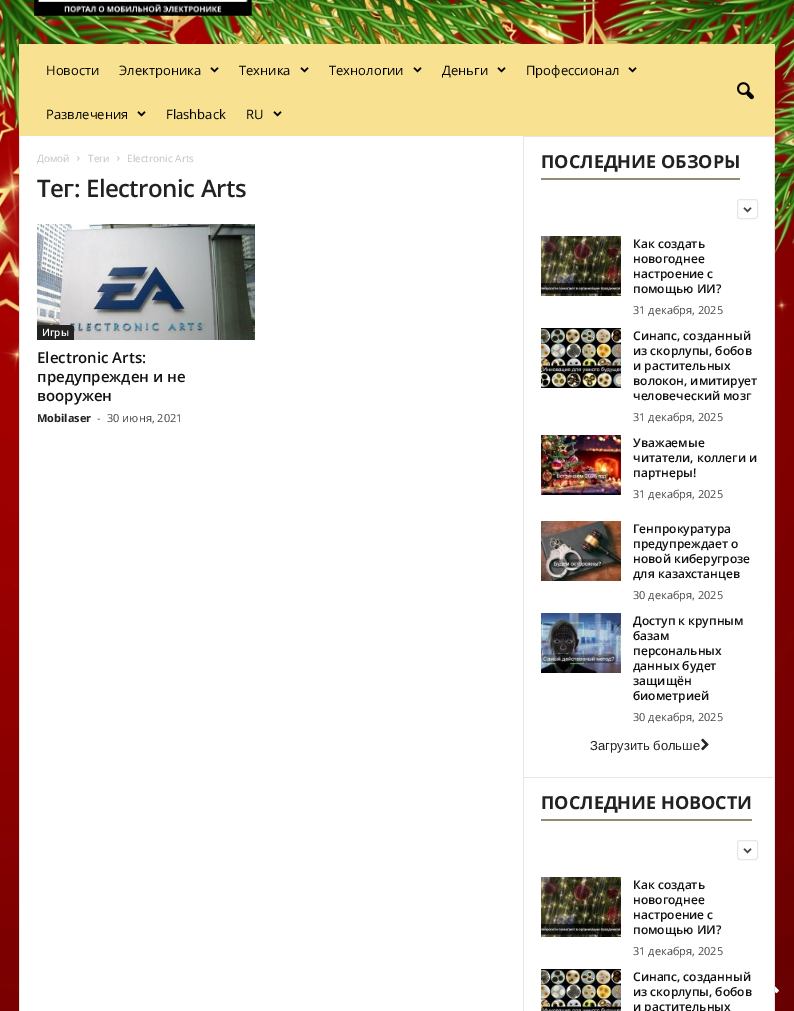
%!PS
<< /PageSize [794 1011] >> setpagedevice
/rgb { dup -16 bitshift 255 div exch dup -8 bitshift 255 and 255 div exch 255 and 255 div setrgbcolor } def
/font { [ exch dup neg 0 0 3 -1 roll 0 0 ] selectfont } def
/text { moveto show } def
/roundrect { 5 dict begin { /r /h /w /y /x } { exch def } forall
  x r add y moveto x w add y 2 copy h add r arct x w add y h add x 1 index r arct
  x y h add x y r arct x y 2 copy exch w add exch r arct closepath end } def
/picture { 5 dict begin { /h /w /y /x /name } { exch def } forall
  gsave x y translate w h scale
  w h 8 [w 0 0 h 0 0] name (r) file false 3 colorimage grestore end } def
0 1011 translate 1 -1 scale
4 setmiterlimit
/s1 { /OpenSans-Regular 13 font 16#000000 rgb } def
/s2 { /OpenSans-Regular 10 font 16#C3C3C3 rgb } def
/s3 { /OpenSans-SemiBold 10 font 16#FFFFFF rgb } def
/s4 { /OpenSans-SemiBold 15 font 16#111111 rgb } def
/s5 { /OpenSans-Bold 11 font 16#222222 rgb } def
/s6 { /OpenSans-Regular 11 font 16#444444 rgb } def
/s7 { /OpenSans-Bold 18 font 16#222222 rgb } def
/s8 { /OpenSans-SemiBold 12 font 16#111111 rgb } def
/s9 { /LiberationSans-Regular 13 font 16#222222 rgb } def
16#FFFFFF rgb
0 0 794 1011 rectfill
(pic1.raw) 0 0 794 1011 picture
(pic2.raw) 34 0 218 16 picture
16#F8E292 rgb
19 44 756 92 rectfill
s1
(Новости) 46 75 text
(Электроника) 119 75 text
(pic3.raw) 210 67 9 6 picture
(Техника) 239 75 text
(pic3.raw) 300 67 9 6 picture
(Технологии) 329 75 text
(pic3.raw) 413 67 9 6 picture
(Деньги) 442 75 text
(pic3.raw) 497 67 9 6 picture
(Профессионал) 526 75 text
(pic3.raw) 628 67 9 6 picture
(Развлечения) 46 119 text
(pic3.raw) 137 111 9 6 picture
(Flashback) 166 119 text
(RU) 246 119 text
(pic3.raw) 273 111 9 6 picture
(pic4.raw) 737 82 17 18 picture
16#FFFFFF rgb
20 136 754 875 rectfill
16#E6E6E6 rgb
19 136 1 875 rectfill
s2
(Домой) 37 162 text
(pic5.raw) 77 156 3 5 picture
(Теги) 88 162 text
(pic5.raw) 117 156 3 5 picture
(Electronic Arts) 127 162 text
/OpenSans-SemiBold 24 font
16#222222 rgb
37 197 moveto -0.5 0 (Тег: Electronic Arts) ashow
(pic6.raw) 37 224 218 116 picture
37 325 moveto 71 325 lineto 72.5 325 74 326.5 74 328 curveto 74 340 lineto 37 340 lineto closepath fill
s3
(Игры) 42 336 text
s4
(Electronic Arts:) 37 363 text
(предупрежден и не) 37 382 text
(вооружен) 37 401 text
s5
(Mobilaser) 37 422 text
s6
(-) 97 422 text
(30 июня, 2021) 107 422 text
16#E6E6E6 rgb
523 136 1 875 rectfill
774 136 1 875 rectfill
524 136 251 1 rectfill
s7
(ПОСЛЕДНИЕ ОБЗОРЫ) 541 168 text
16#96896F rgb
541 178 199 2 rectfill
16#E6E6E6 rgb
737.5 199.5 20 19 2.5 roundrect stroke
(pic7.raw) 743 207 9 6 picture
(pic8.raw) 541 236 80 60 picture
s8
(Как создать) 633 248 text
(новогоднее) 633 263 text
(настроение с) 633 278 text
(помощью ИИ?) 633 293 text
s6
(31 декабря, 2025) 633 314 text
(pic9.raw) 541 328 80 60 picture
s8
(Синапс, созданный) 633 340 text
(из скорлупы, бобов) 633 355 text
(и растительных) 633 370 text
(волокон, имитирует) 633 385 text
(человеческий мозг) 633 400 text
s6
(31 декабря, 2025) 633 421 text
(pic10.raw) 541 435 80 60 picture
s8
(Уважаемые) 633 447 text
(читатели, коллеги и) 633 462 text
(партнеры!) 633 477 text
s6
(31 декабря, 2025) 633 498 text
(pic11.raw) 541 521 80 60 picture
s8
(Генпрокуратура) 633 533 text
(предупреждает о) 633 548 text
(новой киберугрозе) 633 563 text
(для казахстанцев) 633 578 text
s6
(30 декабря, 2025) 633 599 text
(pic12.raw) 541 613 80 60 picture
s8
(Доступ к крупным) 633 625 text
(базам) 633 640 text
(персональных) 633 655 text
(данных будет) 633 670 text
(защищён) 633 685 text
(биометрией) 633 700 text
s6
(30 декабря, 2025) 633 721 text
s9
(Загрузить больше) 590 750 text
(pic13.raw) 701 738 8 13 picture
16#E6E6E6 rgb
524 777 251 1 rectfill
s7
(ПОСЛЕДНИЕ НОВОСТИ) 541 809 text
16#96896F rgb
541 819 211 2 rectfill
16#E6E6E6 rgb
737.5 840.5 20 19 2.5 roundrect stroke
(pic7.raw) 743 848 9 6 picture
(pic8.raw) 541 877 80 60 picture
s8
(Как создать) 633 889 text
(новогоднее) 633 904 text
(настроение с) 633 919 text
(помощью ИИ?) 633 934 text
s6
(31 декабря, 2025) 633 955 text
(pic14.raw) 541 969 80 42 picture
s8
(Синапс, созданный) 633 981 text
(из скорлупы, бобов) 633 996 text
(и растительных) 633 1011 text
(pic15.raw) 775 986 4 8 picture
showpage
